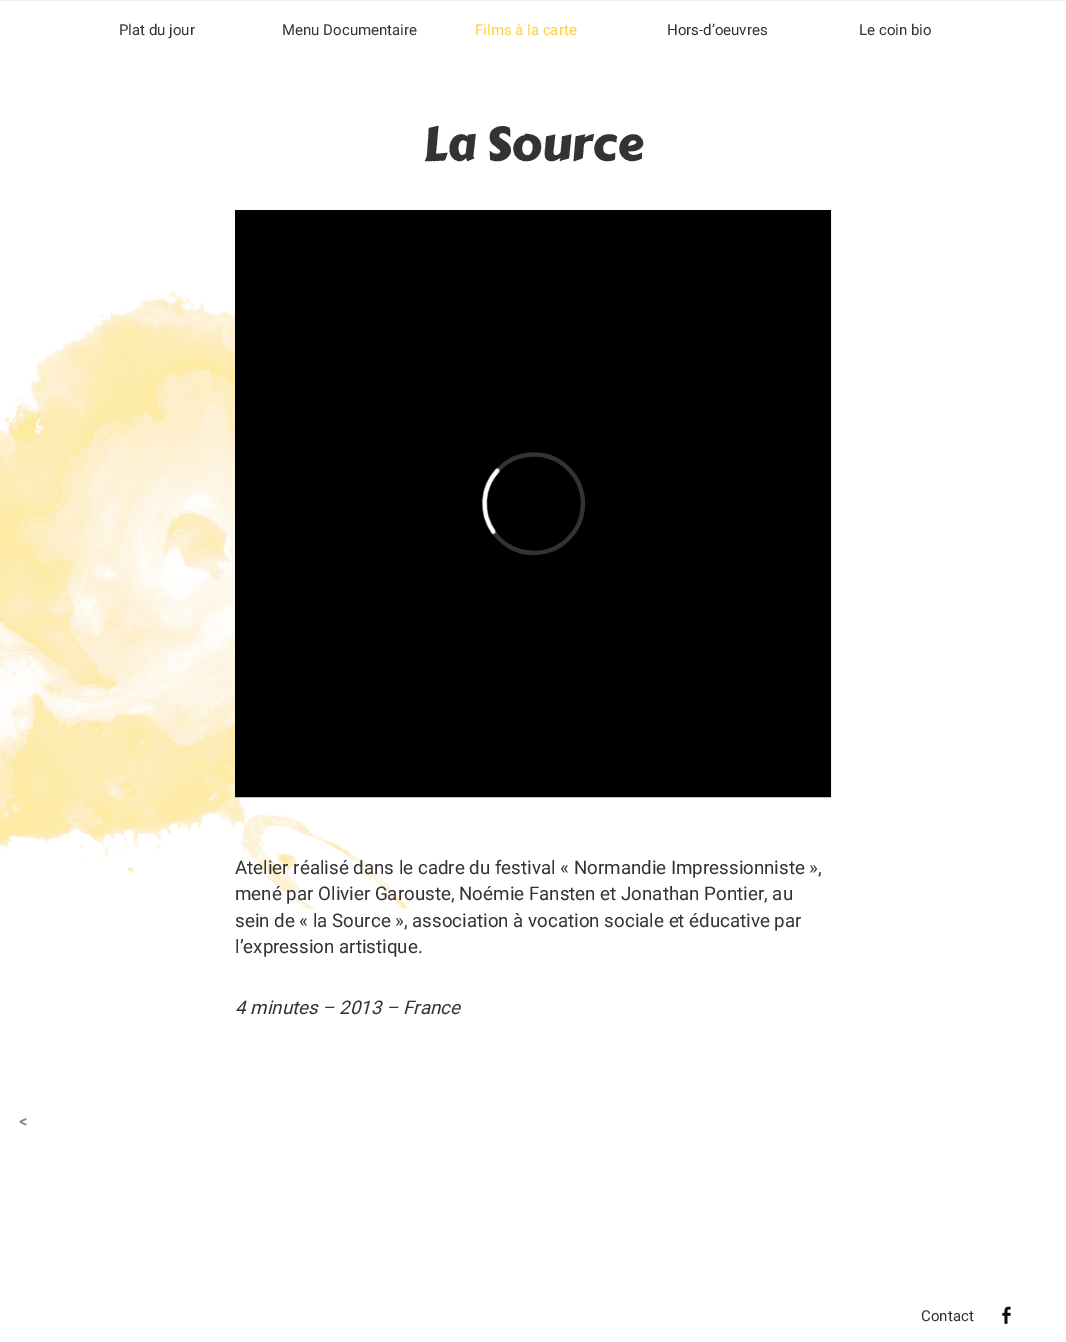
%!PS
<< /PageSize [1066 1342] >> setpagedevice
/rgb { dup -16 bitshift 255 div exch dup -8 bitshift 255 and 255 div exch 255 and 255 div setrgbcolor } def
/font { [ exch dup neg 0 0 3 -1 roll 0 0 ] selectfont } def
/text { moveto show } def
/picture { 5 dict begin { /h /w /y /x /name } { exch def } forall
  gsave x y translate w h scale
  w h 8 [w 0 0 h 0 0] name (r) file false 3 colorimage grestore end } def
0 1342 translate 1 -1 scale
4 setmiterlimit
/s1 { /Cabin-Bold 18.75 font 16#7F7F7F rgb } def
/s2 { /Roboto-Regular 15 font 16#333333 rgb } def
/s3 { /Roboto-Regular 15 font 16#FDD040 rgb } def
/s4 { /CarterOne-Regular 47.5 font 16#333333 rgb } def
/s5 { /Roboto-Regular 18.75 font 16#333333 rgb } def
/s6 { /Roboto-Italic 18.75 font 16#333333 rgb } def
16#FFFFFF rgb
0 0 1066 1342 rectfill
(pic1.raw) 0 288 534 621 picture
s1
(<) 19 1127 text
16#EEEEEE rgb
0 0 1066 1 rectfill
s2
(Plat du jour) 119 35 text
(Menu Documentaire) 282 35 text
s3
(Films à la carte) 475 35 text
s2
(Hors-d’oeuvres) 667 35 text
(Le coin bio) 859 35 text
s4
(La Source) 423 160 text
(pic2.raw) 235 210 597 588 picture
s5
(Atelier réalisé dans le cadre du festival « Normandie Impressionniste »,) 235 874 text
(mené par Olivier Garouste, Noémie Fansten et Jonathan Pontier, au) 235 900 text
(sein de « la Source », association à vocation sociale et éducative par) 235 927 text
(l’expression artistique.) 235 953 text
s6
(4 minutes – 2013 – France) 235 1014 text
s2
(Contact) 921 1321 text
(pic3.raw) 1002 1306 9 18 picture
showpage
